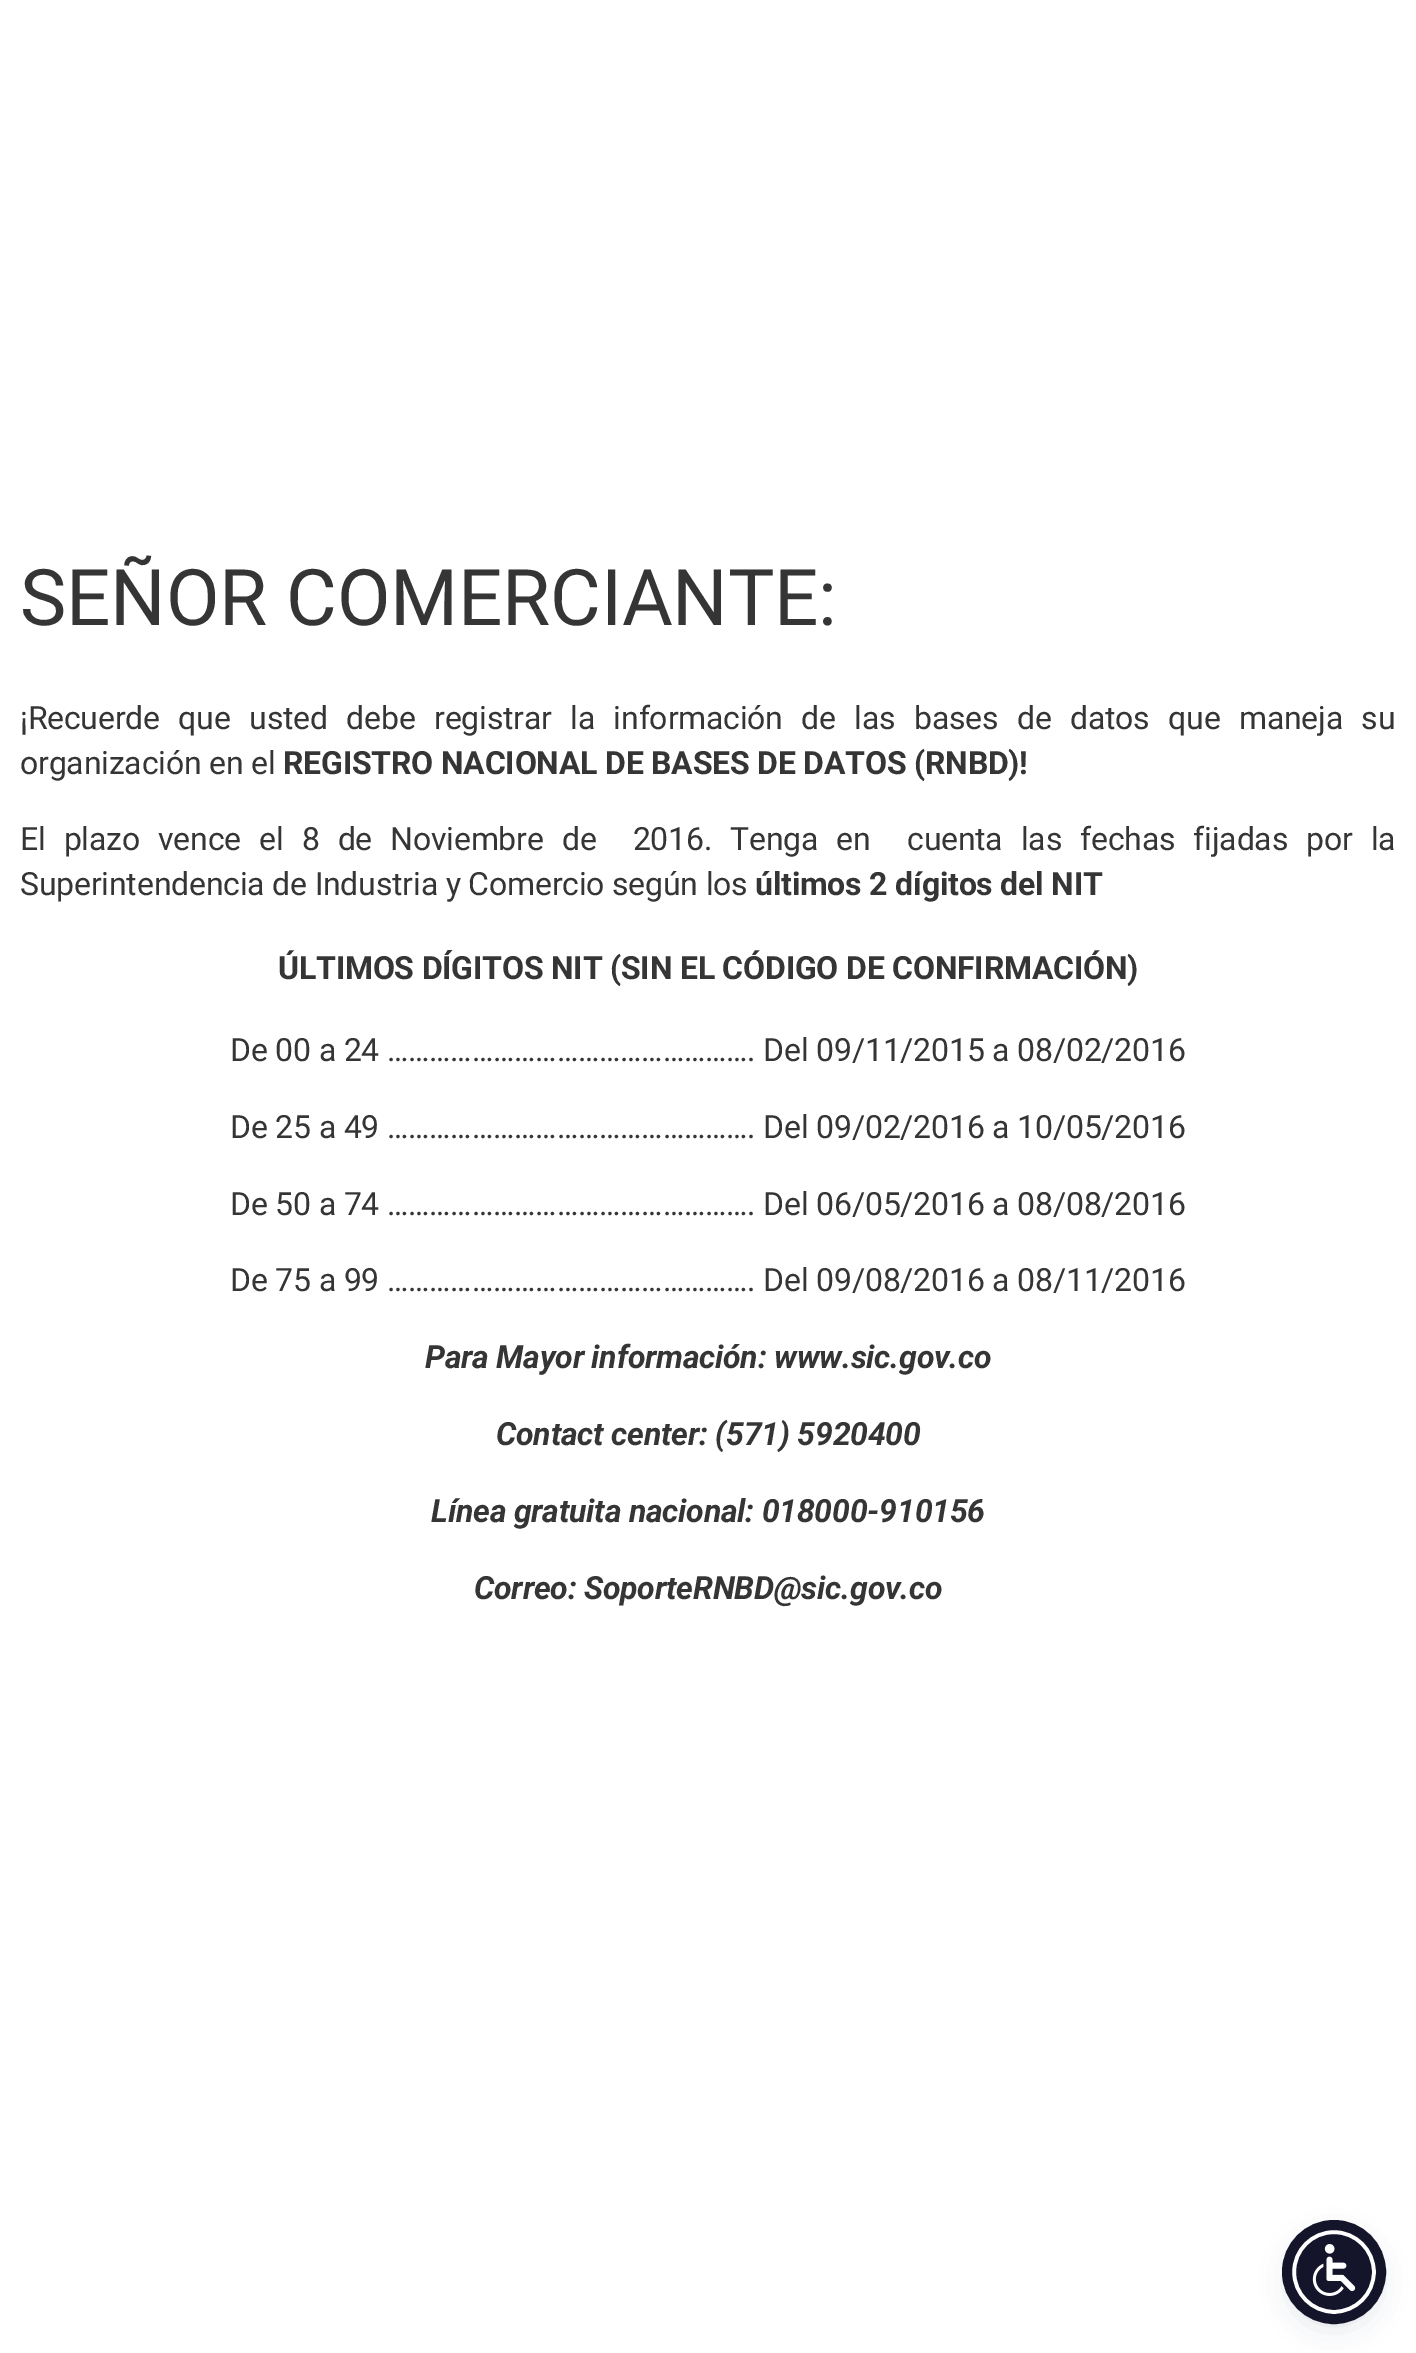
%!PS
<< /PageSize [1416 2353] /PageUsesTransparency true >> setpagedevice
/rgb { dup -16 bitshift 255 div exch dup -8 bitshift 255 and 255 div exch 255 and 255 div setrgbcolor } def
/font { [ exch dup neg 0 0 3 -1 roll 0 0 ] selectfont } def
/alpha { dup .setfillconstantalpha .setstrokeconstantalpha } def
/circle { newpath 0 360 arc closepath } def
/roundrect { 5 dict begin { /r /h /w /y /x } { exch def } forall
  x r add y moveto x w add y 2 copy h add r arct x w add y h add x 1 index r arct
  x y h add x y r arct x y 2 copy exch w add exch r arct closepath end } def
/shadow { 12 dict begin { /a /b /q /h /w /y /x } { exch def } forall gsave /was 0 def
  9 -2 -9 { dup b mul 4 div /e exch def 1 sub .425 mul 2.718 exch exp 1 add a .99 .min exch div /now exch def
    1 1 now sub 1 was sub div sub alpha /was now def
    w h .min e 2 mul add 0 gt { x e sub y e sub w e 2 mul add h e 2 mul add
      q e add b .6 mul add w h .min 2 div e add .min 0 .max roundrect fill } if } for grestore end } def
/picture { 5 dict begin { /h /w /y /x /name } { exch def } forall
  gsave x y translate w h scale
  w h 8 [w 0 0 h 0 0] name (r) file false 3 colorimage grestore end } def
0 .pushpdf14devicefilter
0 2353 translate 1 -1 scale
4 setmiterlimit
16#FFFFFF rgb
0 0 1416 2353 rectfill
/Roboto-Regular 78 font
16#353535 rgb
20 625 moveto -0.2 0 (SEÑOR COMERCIANTE:) ashow
/Roboto-Regular 32 font
20 729 moveto 10.75 0 32 -0.2 0 (¡Recuerde que usted debe registrar la información de las bases de datos que maneja su) awidthshow
20 774 moveto -0.2 0 (organización en el) ashow
/Roboto-Bold 32 font
283 774 moveto -0.2 0 (REGISTRO NACIONAL DE BASES DE DATOS \(RNBD\)!) ashow
/Roboto-Regular 32 font
20 850 moveto 10.4 0 32 -0.2 0 (El plazo vence el 8 de Noviembre de  2016. Tenga en  cuenta las fechas fijadas por la) awidthshow
20 895 moveto -0.2 0 (Superintendencia de Industria y Comercio según los) ashow
/Roboto-Bold 32 font
755 895 moveto -0.2 0 (últimos 2 dígitos del NIT) ashow
278 979 moveto -0.2 0 (ÚLTIMOS DÍGITOS NIT \(SIN EL CÓDIGO DE CONFIRMACIÓN\)) ashow
/Roboto-Regular 32 font
230 1061 moveto -0.2 0 (De 00 a 24 ……………………………………………. Del 09/11/2015 a 08/02/2016) ashow
230 1138 moveto -0.2 0 (De 25 a 49 ……………………………………………. Del 09/02/2016 a 10/05/2016) ashow
230 1215 moveto -0.2 0 (De 50 a 74 ……………………………………………. Del 06/05/2016 a 08/08/2016) ashow
230 1291 moveto -0.2 0 (De 75 a 99 ……………………………………………. Del 09/08/2016 a 08/11/2016) ashow
/Roboto-BoldItalic 32 font
425 1368 moveto -0.2 0 (Para Mayor información: www.sic.gov.co) ashow
496 1445 moveto -0.2 0 (Contact center: \(571\) 5920400) ashow
431 1522 moveto -0.2 0 (Línea gratuita nacional: 018000-910156) ashow
474 1599 moveto -0.2 0 (Correo: SoporteRNBD@sic.gov.co) ashow
16#5D6494 rgb
1292 2234 84 84 42 4 0.2 shadow
16#252C61 rgb
1292 2240 84 84 42 15 0.15 shadow
16#14142A rgb
1334 2272 40 circle gsave fill grestore
16#FFFFFF rgb
4 setlinewidth
stroke
16#14142A rgb
10 setlinewidth
1334 2272 47 circle stroke
(pic1.raw) 1312 2244 44 52 picture
.poppdf14devicefilter showpage
